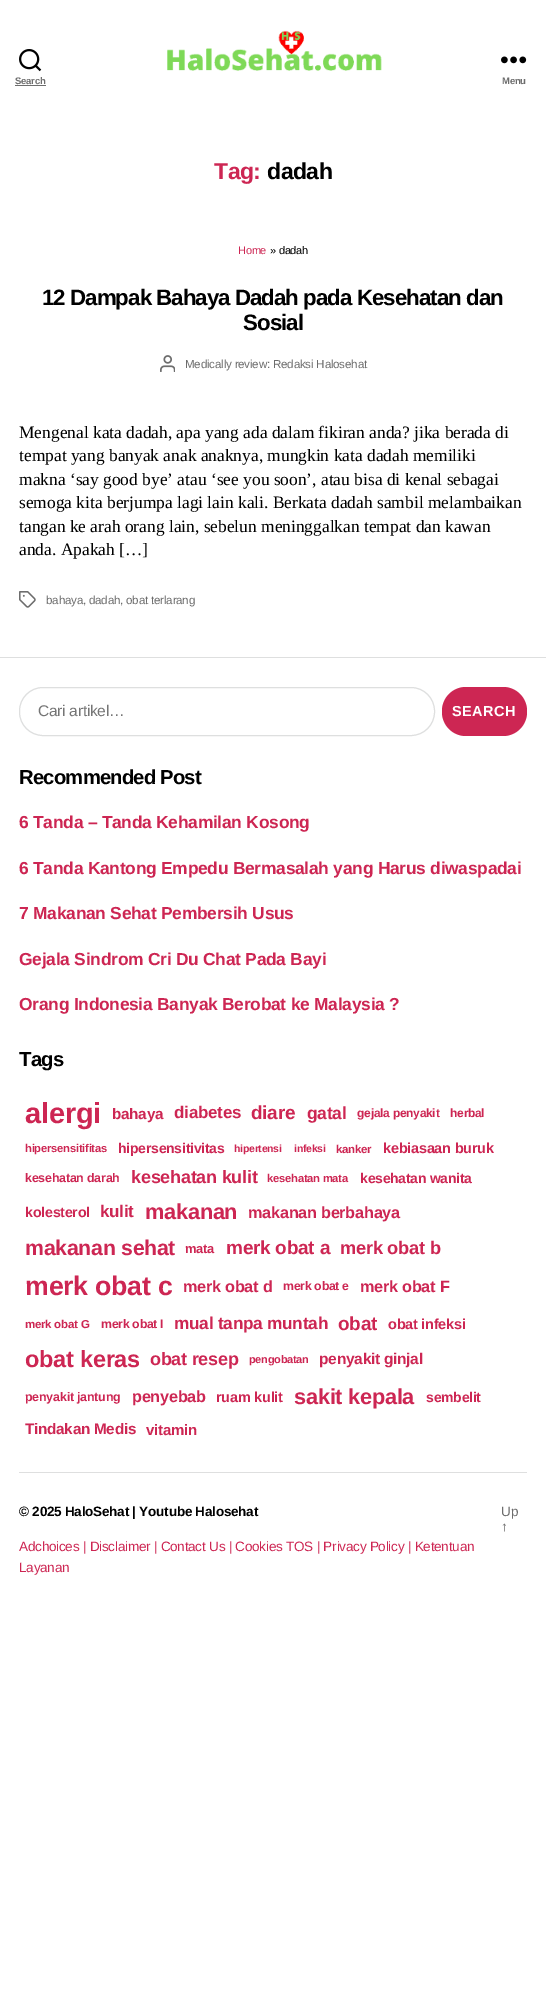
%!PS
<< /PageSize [546 2000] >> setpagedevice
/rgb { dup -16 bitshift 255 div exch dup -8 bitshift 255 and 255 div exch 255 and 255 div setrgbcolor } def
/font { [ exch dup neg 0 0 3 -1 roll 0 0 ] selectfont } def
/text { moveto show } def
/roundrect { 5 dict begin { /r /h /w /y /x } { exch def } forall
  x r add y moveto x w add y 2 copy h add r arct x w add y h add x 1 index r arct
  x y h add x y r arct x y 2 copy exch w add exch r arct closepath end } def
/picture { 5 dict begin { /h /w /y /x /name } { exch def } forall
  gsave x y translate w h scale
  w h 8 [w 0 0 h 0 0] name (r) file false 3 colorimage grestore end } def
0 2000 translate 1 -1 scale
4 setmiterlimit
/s1 { /LiberationSerif-Regular 17.4 font 16#000000 rgb } def
16#FFFFFF rgb
0 0 546 2000 rectfill
(pic1.raw) 167 30 215 41 picture
(pic2.raw) 19 49 23 23 picture
/LiberationSans-Bold 9.5 font
16#6D6D6D rgb
15 84 moveto -0.25 0 (Search) ashow
15 85 31 1 rectfill
(pic3.raw) 501 56 26 8 picture
502 84 moveto -0.25 0 (Menu) ashow
/LiberationSans-Bold 23 font
16#CD2653 rgb
214 179 moveto -0.5 0 (Tag:) ashow
16#000000 rgb
267 179 moveto -0.5 0 (dadah) ashow
/LiberationSans-Regular 11 font
16#CD2653 rgb
238 254 moveto -0.25 0 (Home) ashow
16#000000 rgb
270 254 moveto -0.25 0 (» dadah) ashow
/LiberationSans-Bold 22.25 font
42 305 moveto -0.95 0 (12 Dampak Bahaya Dadah pada Kesehatan dan) ashow
243 330 moveto -0.95 0 (Sosial) ashow
(pic4.raw) 160 355 15 17 picture
/LiberationSans-Regular 11.6 font
16#6D6D6D rgb
185 368 moveto -0.2 0 (Medically review: Redaksi Halosehat) ashow
s1
(Mengenal kata dadah, apa yang ada dalam fikiran anda? jika berada di) 19 438 text
(tempat yang banyak anak anaknya, mungkin kata dadah memiliki) 19 461 text
(makna ‘say good bye’ atau ‘see you soon’, atau bisa di kenal sebagai) 19 485 text
(semoga kita berjumpa lagi lain kali. Berkata dadah sambil melambaikan) 19 508 text
(tangan ke arah orang lain, sebelun meninggalkan tempat dan kawan) 19 532 text
(anda. Apakah […]) 19 555 text
(pic5.raw) 19 591 17 17 picture
/LiberationSans-Regular 11.6 font
16#6D6D6D rgb
46 604 moveto -0.2 0 (bahaya, dadah, obat terlarang) ashow
16#DEDFDF rgb
0 657 546 1 rectfill
19 1472 508 1 rectfill
19.5 687.5 415 48 23.5 roundrect stroke
/LiberationSans-Regular 15.5 font
16#757575 rgb
38 716 moveto -0.25 0 (Cari artikel…) ashow
16#CD2653 rgb
442 687 85 49 24 roundrect fill
/LiberationSans-Bold 14.5 font
16#FFFFFF rgb
452 716 moveto 0.5 0 (SEARCH) ashow
/LiberationSans-Bold 20.25 font
16#000000 rgb
19 784 moveto -0.8 0 (Recommended Post) ashow
/LiberationSans-Bold 17.4 font
16#CD2653 rgb
19 828 moveto -0.25 0 (6 Tanda – Tanda Kehamilan Kosong) ashow
19 874 moveto -0.25 0 (6 Tanda Kantong Empedu Bermasalah yang Harus diwaspadai) ashow
19 919 moveto -0.25 0 (7 Makanan Sehat Pembersih Usus) ashow
19 965 moveto -0.25 0 (Gejala Sindrom Cri Du Chat Pada Bayi) ashow
19 1010 moveto -0.25 0 (Orang Indonesia Banyak Berobat ke Malaysia ?) ashow
/LiberationSans-Bold 20.25 font
16#000000 rgb
19 1066 moveto -0.8 0 (Tags) ashow
/LiberationSans-Bold 29 font
16#CD2653 rgb
25 1123 moveto -0.25 0 (alergi) ashow
/LiberationSans-Bold 15.25 font
112 1119 moveto -0.25 0 (bahaya) ashow
/LiberationSans-Bold 17 font
174 1118 moveto -0.25 0 (diabetes) ashow
/LiberationSans-Bold 19 font
251 1119 moveto -0.25 0 (diare) ashow
/LiberationSans-Bold 17.5 font
307 1119 moveto -0.25 0 (gatal) ashow
/LiberationSans-Bold 12 font
357 1117 moveto -0.25 0 (gejala penyakit) ashow
450 1117 moveto -0.25 0 (herbal) ashow
/LiberationSans-Bold 11.25 font
25 1152 moveto -0.25 0 (hipersensitifitas) ashow
/LiberationSans-Bold 14 font
118 1153 moveto -0.25 0 (hipersensitivitas) ashow
/LiberationSans-Bold 10.5 font
234 1152 moveto -0.25 0 (hipertensi) ashow
294 1152 moveto -0.25 0 (infeksi) ashow
/LiberationSans-Bold 11.5 font
336 1153 moveto -0.25 0 (kanker) ashow
/LiberationSans-Bold 14.5 font
383 1153 moveto -0.25 0 (kebiasaan buruk) ashow
/LiberationSans-Bold 12.5 font
25 1182 moveto -0.25 0 (kesehatan darah) ashow
/LiberationSans-Bold 18 font
131 1183 moveto -0.25 0 (kesehatan kulit) ashow
/LiberationSans-Bold 11.25 font
267 1182 moveto -0.25 0 (kesehatan mata) ashow
/LiberationSans-Bold 14 font
360 1183 moveto -0.25 0 (kesehatan wanita) ashow
/LiberationSans-Bold 14.25 font
25 1217 moveto -0.25 0 (kolesterol) ashow
/LiberationSans-Bold 17 font
100 1217 moveto -0.25 0 (kulit) ashow
/LiberationSans-Bold 21.75 font
145 1219 moveto -0.25 0 (makanan) ashow
/LiberationSans-Bold 16.25 font
248 1218 moveto -0.25 0 (makanan berbahaya) ashow
/LiberationSans-Bold 21.25 font
25 1255 moveto -0.25 0 (makanan sehat) ashow
/LiberationSans-Bold 13 font
185 1253 moveto -0.25 0 (mata) ashow
/LiberationSans-Bold 19 font
226 1254 moveto -0.25 0 (merk obat a) ashow
/LiberationSans-Bold 18.25 font
340 1254 moveto -0.25 0 (merk obat b) ashow
/LiberationSans-Bold 26.75 font
25 1295 moveto -0.25 0 (merk obat c) ashow
/LiberationSans-Bold 16.25 font
183 1292 moveto -0.25 0 (merk obat d) ashow
/LiberationSans-Bold 12.25 font
283 1290 moveto -0.25 0 (merk obat e) ashow
/LiberationSans-Bold 16.25 font
360 1292 moveto -0.25 0 (merk obat F) ashow
/LiberationSans-Bold 11.5 font
25 1328 moveto -0.25 0 (merk obat G) ashow
/LiberationSans-Bold 12.25 font
101 1328 moveto -0.25 0 (merk obat I) ashow
/LiberationSans-Bold 17.25 font
174 1329 moveto -0.25 0 (mual tanpa muntah) ashow
/LiberationSans-Bold 19 font
338 1330 moveto -0.25 0 (obat) ashow
/LiberationSans-Bold 14.5 font
388 1329 moveto -0.25 0 (obat infeksi) ashow
/LiberationSans-Bold 23.5 font
25 1367 moveto -0.25 0 (obat keras) ashow
/LiberationSans-Bold 18 font
150 1365 moveto -0.25 0 (obat resep) ashow
/LiberationSans-Bold 11 font
249 1363 moveto -0.25 0 (pengobatan) ashow
/LiberationSans-Bold 15.5 font
319 1364 moveto -0.25 0 (penyakit ginjal) ashow
/LiberationSans-Bold 12.5 font
25 1401 moveto -0.25 0 (penyakit jantung) ashow
/LiberationSans-Bold 16.25 font
132 1402 moveto -0.25 0 (penyebab) ashow
/LiberationSans-Bold 14.5 font
216 1402 moveto -0.25 0 (ruam kulit) ashow
/LiberationSans-Bold 21.75 font
294 1404 moveto -0.25 0 (sakit kepala) ashow
/LiberationSans-Bold 14 font
426 1402 moveto -0.25 0 (sembelit) ashow
/LiberationSans-Bold 15.25 font
25 1434 moveto -0.25 0 (Tindakan Medis) ashow
/LiberationSans-Bold 15 font
146 1435 moveto -0.25 0 (vitamin) ashow
/LiberationSans-Bold 13.55 font
16#000000 rgb
19 1516 moveto -0.25 0 (© 2025 HaloSehat | Youtube Halosehat) ashow
/LiberationSans-Regular 13.55 font
16#CD2653 rgb
19 1551 moveto -0.25 0 (Adchoices | Disclaimer | Contact Us | Cookies TOS | Privacy Policy | Ketentuan) ashow
19 1572 moveto -0.25 0 (Layanan) ashow
16#6D6D6D rgb
501 1516 moveto -0.25 0 (Up) ashow
501 1531 moveto -0.25 0 (↑) ashow
showpage
